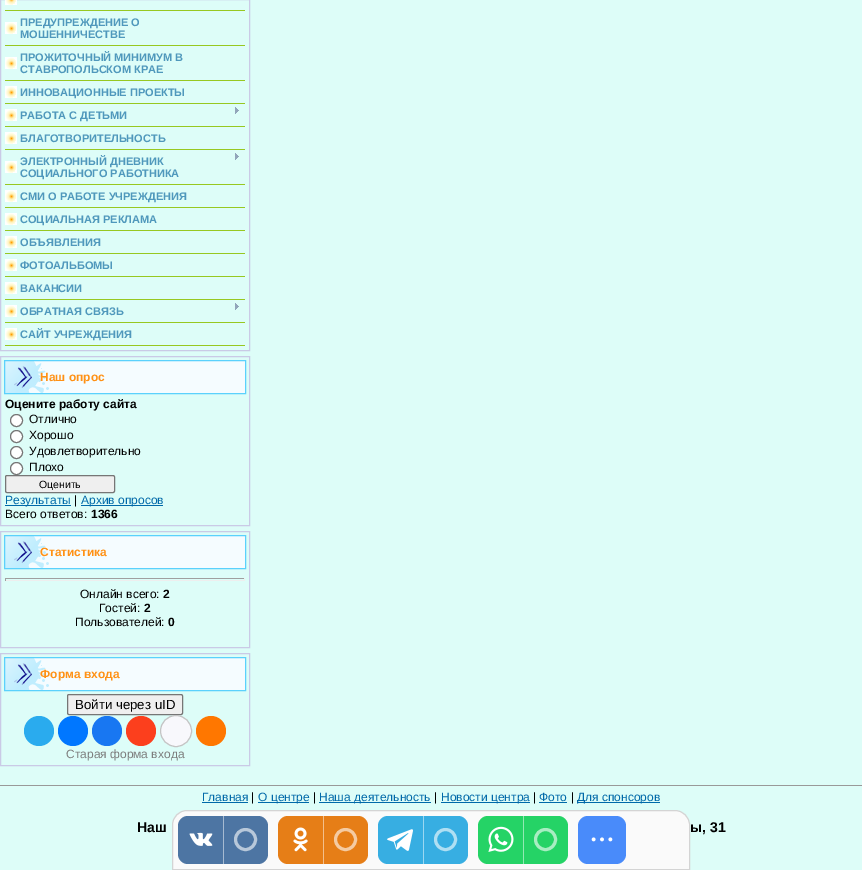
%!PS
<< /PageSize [862 870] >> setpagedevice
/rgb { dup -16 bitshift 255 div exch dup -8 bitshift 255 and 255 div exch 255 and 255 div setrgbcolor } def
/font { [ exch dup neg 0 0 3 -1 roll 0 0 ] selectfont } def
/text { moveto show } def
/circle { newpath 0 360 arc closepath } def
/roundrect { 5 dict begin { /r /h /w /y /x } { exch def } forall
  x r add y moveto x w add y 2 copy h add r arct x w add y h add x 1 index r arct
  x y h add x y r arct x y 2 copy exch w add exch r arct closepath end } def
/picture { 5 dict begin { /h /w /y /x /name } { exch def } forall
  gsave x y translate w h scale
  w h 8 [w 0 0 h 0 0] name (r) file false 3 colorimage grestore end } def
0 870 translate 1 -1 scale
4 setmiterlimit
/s1 { /LiberationSans-Bold 11 font 16#4F98BC rgb } def
/s2 { /LiberationSans-Bold 12 font 16#FF9115 rgb } def
/s3 { /LiberationSans-Bold 12 font 16#000000 rgb } def
/s4 { /LiberationSans-Regular 12 font 16#000000 rgb } def
/s5 { /LiberationSans-Regular 10.5 font 16#000000 rgb } def
/s6 { /LiberationSans-Regular 12 font 16#0069A9 rgb } def
/s7 { /LiberationSans-Regular 13.25 font 16#000000 rgb } def
/s8 { /LiberationSans-Regular 12 font 16#7D7D7D rgb } def
/s9 { /LiberationSans-Bold 14 font 16#000000 rgb } def
16#DDFDF8 rgb
0 0 862 870 rectfill
16#CACAE6 rgb
0.5 -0.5 249 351 rectstroke
(pic1.raw) 5 0 12 5 picture
16#97C821 rgb
5 10 240 1 rectfill
(pic2.raw) 5 22 12 12 picture
5 45 240 1 rectfill
s1
(ПРЕДУПРЕЖДЕНИЕ О) 20 26 text
(МОШЕННИЧЕСТВЕ) 20 38 text
(pic2.raw) 5 57 12 12 picture
16#97C821 rgb
5 80 240 1 rectfill
s1
(ПРОЖИТОЧНЫЙ МИНИМУМ В) 20 61 text
(СТАВРОПОЛЬСКОМ КРАЕ) 20 73 text
(pic2.raw) 5 86 12 12 picture
16#97C821 rgb
5 103 240 1 rectfill
s1
(ИННОВАЦИОННЫЕ ПРОЕКТЫ) 20 96 text
(pic2.raw) 5 109 12 12 picture
16#97C821 rgb
5 126 240 1 rectfill
s1
(РАБОТА С ДЕТЬМИ) 20 119 text
(pic3.raw) 235 107 4 7 picture
(pic2.raw) 5 132 12 12 picture
16#97C821 rgb
5 149 240 1 rectfill
s1
(БЛАГОТВОРИТЕЛЬНОСТЬ) 20 142 text
(pic2.raw) 5 161 12 12 picture
16#97C821 rgb
5 184 240 1 rectfill
s1
(ЭЛЕКТРОННЫЙ ДНЕВНИК) 20 165 text
(pic3.raw) 235 153 4 7 picture
(СОЦИАЛЬНОГО РАБОТНИКА) 20 177 text
(pic2.raw) 5 190 12 12 picture
16#97C821 rgb
5 207 240 1 rectfill
s1
(СМИ О РАБОТЕ УЧРЕЖДЕНИЯ) 20 200 text
(pic2.raw) 5 213 12 12 picture
16#97C821 rgb
5 230 240 1 rectfill
s1
(СОЦИАЛЬНАЯ РЕКЛАМА) 20 223 text
(pic2.raw) 5 236 12 12 picture
16#97C821 rgb
5 253 240 1 rectfill
s1
(ОБЪЯВЛЕНИЯ) 20 246 text
(pic2.raw) 5 259 12 12 picture
16#97C821 rgb
5 276 240 1 rectfill
s1
(ФОТОАЛЬБОМЫ) 20 269 text
(pic2.raw) 5 282 12 12 picture
16#97C821 rgb
5 299 240 1 rectfill
s1
(ВАКАНСИИ) 20 292 text
(pic2.raw) 5 305 12 12 picture
16#97C821 rgb
5 322 240 1 rectfill
s1
(ОБРАТНАЯ СВЯЗЬ) 20 315 text
(pic3.raw) 235 303 4 7 picture
(pic2.raw) 5 328 12 12 picture
16#97C821 rgb
5 345 240 1 rectfill
s1
(САЙТ УЧРЕЖДЕНИЯ) 20 338 text
16#CACAE6 rgb
0.5 356.5 249 169 rectstroke
16#F5FCFF rgb
49 361 196 32 rectfill
(pic4.raw) 5 361 44 32 picture
16#5BD1FC rgb
4.5 360.5 241 33 rectstroke
s2
(Наш опрос) 40 381 text
s3
(Оцените работу сайта) 5 408 text
16#FFFFFF rgb
16.5 420.5 6 circle gsave fill grestore
16#767676 rgb
stroke
s4
(Отлично) 29 423 text
16#FFFFFF rgb
16.5 436.5 6 circle gsave fill grestore
16#767676 rgb
stroke
s4
(Хорошо) 29 439 text
16#FFFFFF rgb
16.5 452.5 6 circle gsave fill grestore
16#767676 rgb
stroke
s4
(Удовлетворительно) 29 455 text
16#FFFFFF rgb
16.5 468.5 6 circle gsave fill grestore
16#767676 rgb
stroke
s4
(Плохо) 29 471 text
16#EFEFEF rgb
5.5 475.5 109 17 1.5 roundrect gsave fill grestore
16#767676 rgb
stroke
s5
(Оценить) 39 488 text
16#0069A9 rgb
5 505 66 1 rectfill
s6
(Результаты) 5 504 text
s4
(|) 74 504 text
16#0069A9 rgb
81 505 82 1 rectfill
(Архив опросов) 81 504 text
s4
(Всего ответов:) 5 518 text
s3
(1366) 91 518 text
16#CACAE6 rgb
0.5 531.5 249 116 rectstroke
16#F5FCFF rgb
49 536 196 32 rectfill
(pic4.raw) 5 536 44 32 picture
16#5BD1FC rgb
4.5 535.5 241 33 rectstroke
s2
(Статистика) 40 556 text
16#9F9F9F rgb
5 578 240 1 rectfill
16#EEEEEE rgb
244 578 1 3 rectfill
5 580 240 1 rectfill
16#9F9F9F rgb
5 578 1 3 rectfill
s4
(Онлайн всего:) 80 598 text
s3
(2) 163 598 text
s4
(Гостей:) 99 612 text
s3
(2) 144 612 text
s4
(Пользователей:) 75 626 text
s3
(0) 168 626 text
16#CACAE6 rgb
0.5 653.5 249 112 rectstroke
16#F5FCFF rgb
49 658 196 32 rectfill
(pic4.raw) 5 658 44 32 picture
16#5BD1FC rgb
4.5 657.5 241 33 rectstroke
s2
(Форма входа) 40 678 text
16#EFEFEF rgb
67.5 694.5 115 20 1.5 roundrect gsave fill grestore
16#767676 rgb
stroke
s7
(Войти через uID) 75 709 text
16#2AABEE rgb
39 731 15 circle fill
16#0077FF rgb
73 731 15 circle fill
16#1877F2 rgb
107 731 15 circle fill
16#FC3F1D rgb
141 731 15 circle fill
16#F8F8FC rgb
176 731 15.5 circle gsave fill grestore
16#C4C4C4 rgb
stroke
16#FF7700 rgb
211 731 15 circle fill
s8
(Старая форма входа) 66 758 text
16#999999 rgb
0 785 862 1 rectfill
s6
(Главная) 202 801 text
202 802 46 1 rectfill
s4
(|) 251 801 text
16#0069A9 rgb
258 802 51 1 rectfill
(О центре) 258 801 text
s4
(|) 313 801 text
16#0069A9 rgb
319 802 112 1 rectfill
(Наша деятельность) 319 801 text
s4
(|) 434 801 text
16#0069A9 rgb
441 802 89 1 rectfill
(Новости центра) 441 801 text
s4
(|) 533 801 text
s6
(Фото) 539 801 text
539 802 28 1 rectfill
s4
(|) 571 801 text
16#0069A9 rgb
577 802 83 1 rectfill
(Для спонсоров) 577 801 text
s9
(Наш) 137 832 text
(ы, 31) 690 832 text
16#FAFAFA rgb
187 810.5 moveto 675 810.5 lineto 683 810.5 689.5 817 689.5 825 curveto 689.5 869.5 lineto 172.5 869.5 lineto 172.5 825 lineto 172.5 817 179 810.5 187 810.5 curveto closepath gsave fill grestore
16#D4D4D4 rgb
stroke
16#4D75A3 rgb
178 816 90 48 10 roundrect fill
(pic5.raw) 189 832 24 14 picture
16#A6BAD1 rgb
223 816 1 48 rectfill
16#B8C8DA rgb
3 setlinewidth
245.5 839.5 10 circle stroke
16#E67E17 rgb
278 816 90 48 10 roundrect fill
(pic6.raw) 293 827 15 25 picture
16#F3BF8B rgb
323 816 1 48 rectfill
16#F5CBA2 rgb
345.5 839.5 10 circle stroke
16#37AEE2 rgb
378 816 90 48 10 roundrect fill
(pic7.raw) 387 829 26 22 picture
16#9BD7F1 rgb
423 816 1 48 rectfill
16#AFDFF3 rgb
445.5 839.5 10 circle stroke
16#25D366 rgb
478 816 90 48 10 roundrect fill
(pic8.raw) 488 826 26 26 picture
16#92E9B3 rgb
523 816 1 48 rectfill
16#A8EDC2 rgb
545.5 839.5 10 circle stroke
16#498BFA rgb
578 816 48 48 10 roundrect fill
(pic9.raw) 591 837 22 5 picture
showpage
